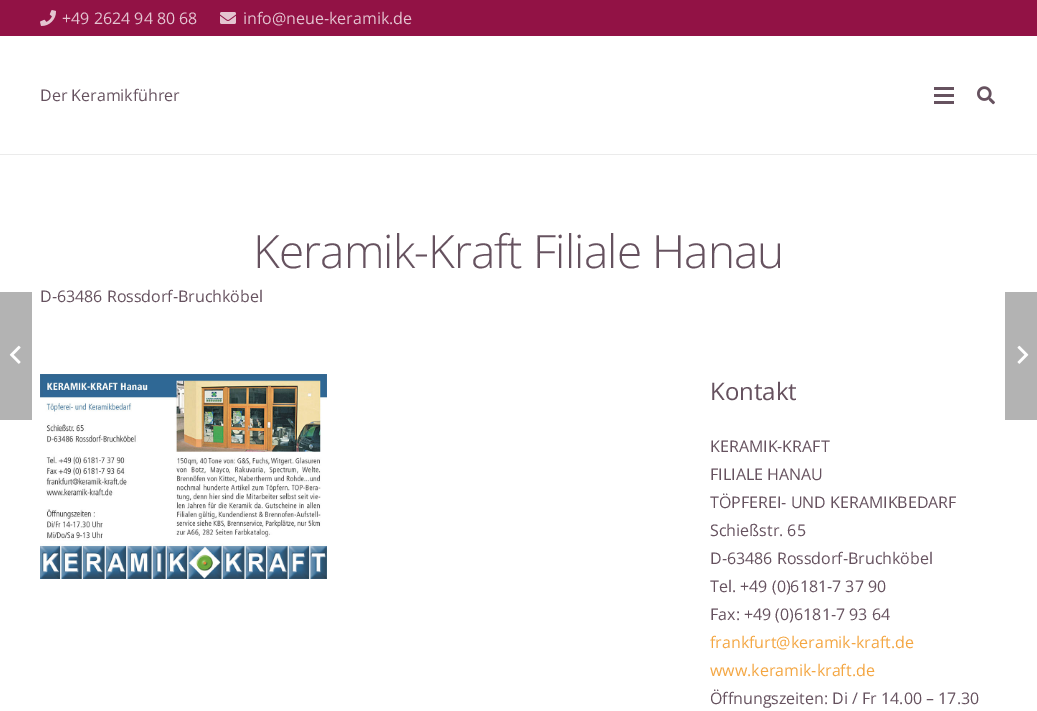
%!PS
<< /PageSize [1037 711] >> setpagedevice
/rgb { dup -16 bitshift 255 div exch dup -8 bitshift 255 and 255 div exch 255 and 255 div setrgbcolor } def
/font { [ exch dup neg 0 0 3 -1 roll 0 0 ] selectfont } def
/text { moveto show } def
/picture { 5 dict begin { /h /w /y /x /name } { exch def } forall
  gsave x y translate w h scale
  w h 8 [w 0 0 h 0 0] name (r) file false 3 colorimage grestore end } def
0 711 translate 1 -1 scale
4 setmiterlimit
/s1 { /OpenSans-Regular 16 font 16#E4C4D1 rgb } def
/s2 { /OpenSans-Regular 16 font 16#66525F rgb } def
/s3 { /OpenSans-Regular 24 font 16#66525F rgb } def
/s4 { /OpenSans-Regular 16 font 16#F4A641 rgb } def
16#FFFFFF rgb
0 0 1037 711 rectfill
16#921245 rgb
0 0 1037 36 rectfill
(pic1.raw) 40 10 16 16 picture
s1
(+49 2624 94 80 68) 62 24 text
(pic2.raw) 220 12 16 12 picture
(info@neue-keramik.de) 243 24 text
16#EBEBEB rgb
0 154 1037 1 rectfill
s2
(Der Keramikführer) 40 101 text
934 94 20 3 rectfill
934 87 20 3 rectfill
934 101 20 3 rectfill
(pic3.raw) 977 86 18 19 picture
/OpenSans-Light 46 font
253 268 moveto -0.9 0 (Keramik-Kraft Filiale Hanau) ashow
s2
(D-63486 Rossdorf-Bruchköbel) 40 302 text
16#B3B3B3 rgb
0 292 32 128 rectfill
(pic4.raw) 9 345 12 19 picture
1005 292 32 128 rectfill
(pic5.raw) 1017 345 12 19 picture
(pic6.raw) 40 374 287 205 picture
s3
(Kontakt) 710 400 text
s2
(KERAMIK-KRAFT) 710 452 text
(FILIALE HANAU) 710 480 text
(TÖPFEREI- UND KERAMIKBEDARF) 710 508 text
(Schießstr. 65) 710 536 text
(D-63486 Rossdorf-Bruchköbel) 710 564 text
(Tel. +49 \(0\)6181-7 37 90) 710 592 text
(Fax: +49 \(0\)6181-7 93 64) 710 620 text
s4
(frankfurt@keramik-kraft.de) 710 648 text
(www.keramik-kraft.de) 710 676 text
s2
(Öffnungszeiten: Di / Fr 14.00 – 17.30) 710 704 text
showpage
